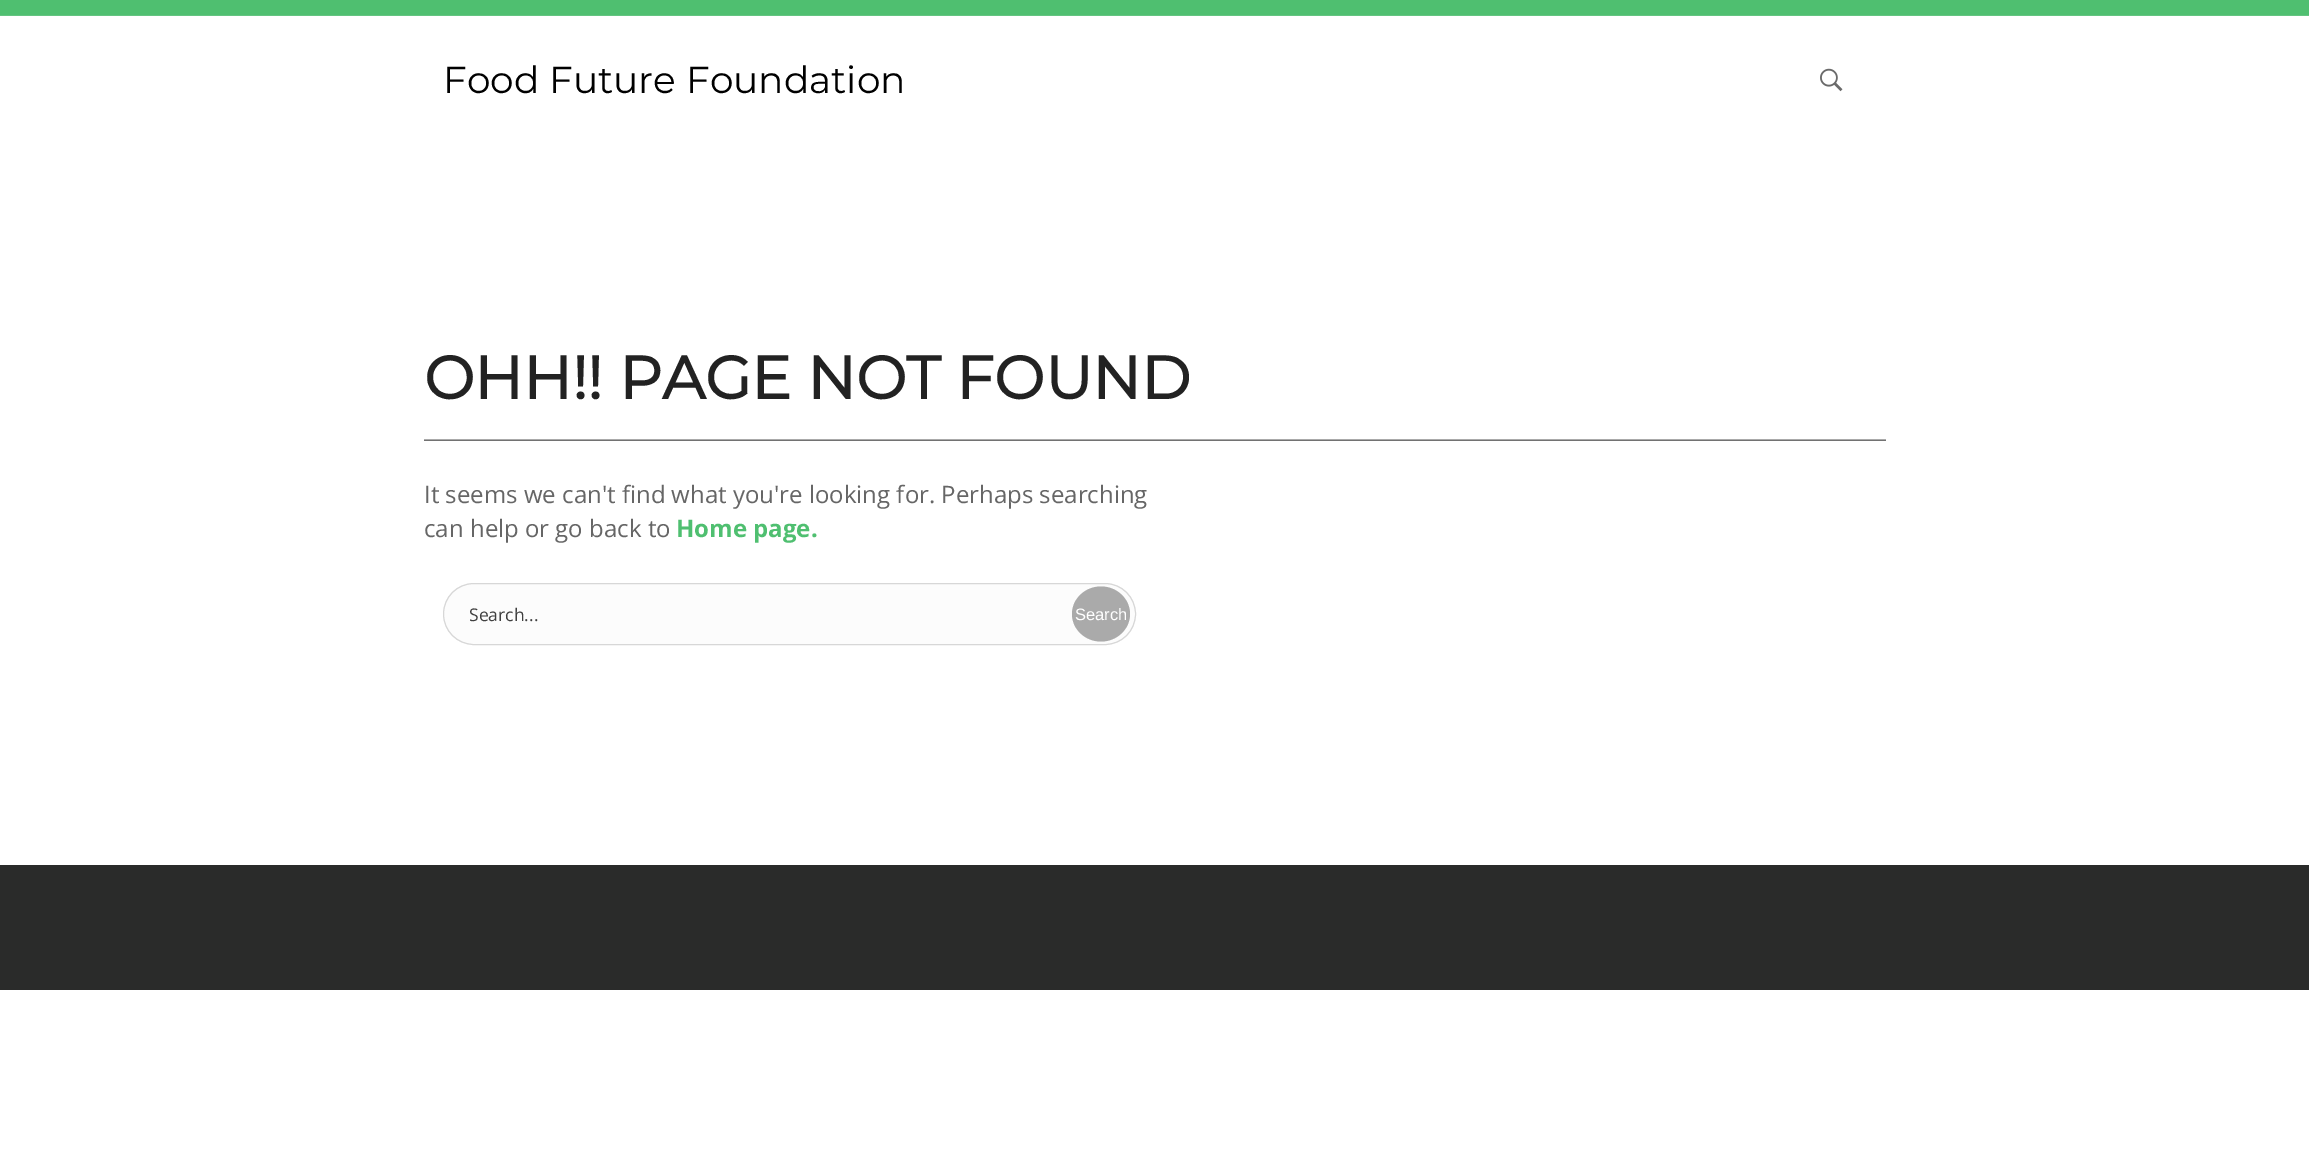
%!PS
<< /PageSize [2309 1166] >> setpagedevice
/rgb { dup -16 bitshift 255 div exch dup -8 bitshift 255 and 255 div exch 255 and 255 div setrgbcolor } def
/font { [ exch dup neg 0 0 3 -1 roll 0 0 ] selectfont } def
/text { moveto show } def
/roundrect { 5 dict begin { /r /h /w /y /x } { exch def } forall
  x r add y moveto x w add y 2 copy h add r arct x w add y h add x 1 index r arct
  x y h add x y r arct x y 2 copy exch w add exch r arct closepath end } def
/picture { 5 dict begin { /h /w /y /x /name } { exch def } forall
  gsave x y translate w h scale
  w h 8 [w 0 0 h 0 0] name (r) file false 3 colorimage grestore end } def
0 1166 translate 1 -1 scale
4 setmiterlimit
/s1 { /Montserrat-Thin 37.5 font 16#000000 rgb } def
/s2 { /Montserrat-Bold 60 font 16#222222 rgb } def
/s3 { /OpenSans-Regular 24 font 16#666666 rgb } def
/s4 { /OpenSans-Bold 24 font 16#4FBF70 rgb } def
/s5 { /OpenSans-Regular 17.5 font 16#3F3F3F rgb } def
/s6 { /LiberationSans-Regular 16.5 font 16#FFFFFF rgb } def
16#FFFFFF rgb
0 0 2309 1166 rectfill
16#4FBF70 rgb
0 0 2309 15 rectfill
16#64C481 rgb
0 15 2309 1 rectfill
s1
(Food Future Foundation) 443 93 text
(pic1.raw) 1820 68 23 24 picture
16#727272 rgb
424 440 1462 1 rectfill
16#AAAAAA rgb
424 439 1462 1 rectfill
s2
(OHH!! PAGE NOT FOUND) 424 399 text
s3
(It seems we can't find what you're looking for. Perhaps searching) 424 503 text
(can help or go back to) 424 537 text
s4
(Home page.) 676 537 text
16#FCFCFC rgb
443.5 583.5 692 61 30.5 roundrect gsave fill grestore
16#D7D7D7 rgb
stroke
s5
(Search...) 469 621 text
16#AAAAAA rgb
1101 586.5 moveto 1117 586.5 1130 599 1130 614 curveto 1130 629 1117 641.5 1101 641.5 curveto 1085 641.5 1072 629 1072 614 curveto 1072 599 1085 586.5 1101 586.5 curveto closepath fill
s6
(Search) 1075 620 text
16#2A2B2A rgb
0 865 2309 125 rectfill
showpage
